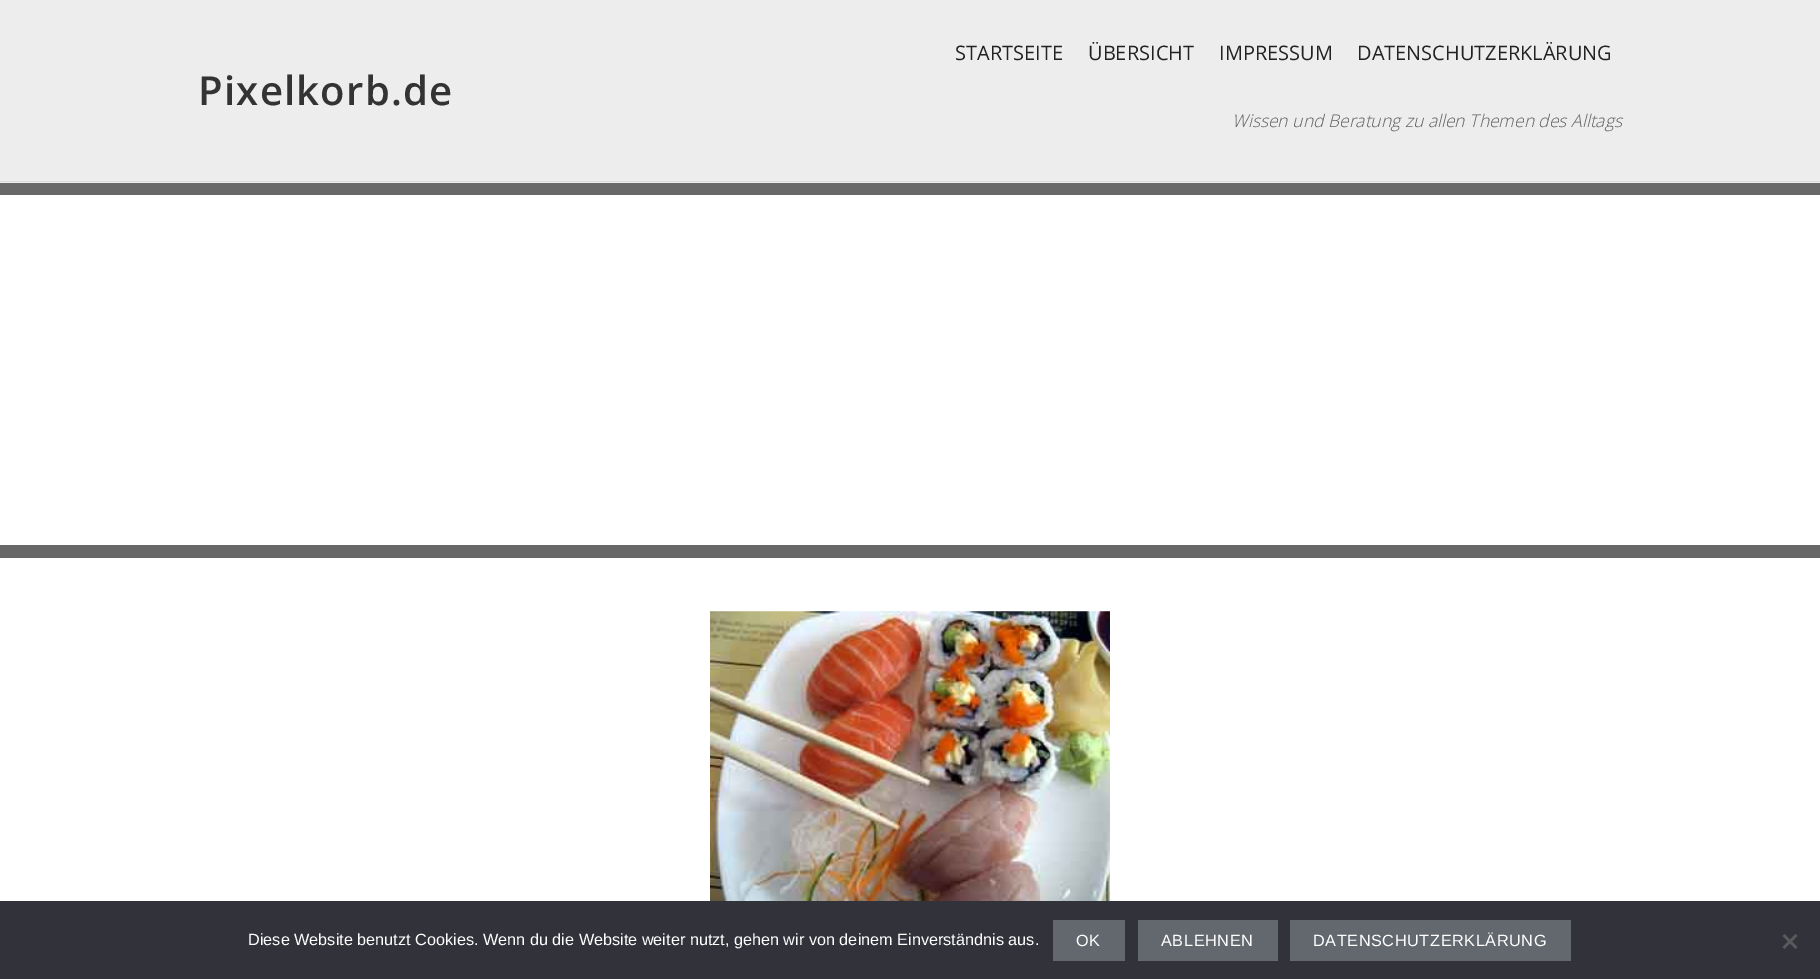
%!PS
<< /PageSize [1820 979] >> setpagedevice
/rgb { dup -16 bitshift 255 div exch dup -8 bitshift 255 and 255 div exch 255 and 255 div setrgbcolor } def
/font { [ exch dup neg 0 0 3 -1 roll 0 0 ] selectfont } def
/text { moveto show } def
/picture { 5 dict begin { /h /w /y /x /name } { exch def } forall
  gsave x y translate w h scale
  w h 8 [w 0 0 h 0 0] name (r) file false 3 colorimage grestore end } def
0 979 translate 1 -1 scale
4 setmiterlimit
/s1 { /OpenSans-Regular 20 font 16#222222 rgb } def
/s2 { /OpenSans-LightItalic 17.5 font 16#616161 rgb } def
/s3 { /LiberationSans-Regular 16.25 font 16#FFFFFF rgb } def
16#686868 rgb
0 0 1820 979 rectfill
16#EDEDED rgb
0 0 1820 183 rectfill
16#D9D9D9 rgb
0 181 1820 1 rectfill
/OpenSans-SemiBold 40 font
16#333333 rgb
198 105 moveto 1.25 0 (Pixelkorb.de) ashow
s1
(STARTSEITE) 955 60 text
(ÜBERSICHT) 1088 60 text
(IMPRESSUM) 1219 60 text
(DATENSCHUTZERKLÄRUNG) 1357 60 text
s2
(Wissen und Beratung zu allen Themen des Alltags) 1232 127 text
16#FFFFFF rgb
0 195 1820 350 rectfill
0 558 1820 343 rectfill
(pic1.raw) 710 611 400 290 picture
16#32323A rgb
0 901 1820 78 rectfill
s3
(Diese Website benutzt Cookies. Wenn du die Website weiter nutzt, gehen wir von deinem Einverständnis aus.) 248 945 text
16#62686E rgb
1053 920 72 41 rectfill
16#FFFFFF rgb
1076 946 moveto 0.6 0 (OK) ashow
16#62686E rgb
1138 920 140 41 rectfill
16#FFFFFF rgb
1161 946 moveto 0.6 0 (ABLEHNEN) ashow
16#62686E rgb
1290 920 281 41 rectfill
16#FFFFFF rgb
1313 946 moveto 0.6 0 (DATENSCHUTZERKLÄRUNG) ashow
16#59595D rgb
1795.5 934 moveto 1797.5 936 lineto 1784.5 949 lineto 1782.5 947 lineto closepath fill
1782.5 936 moveto 1784.5 934 lineto 1797.5 947 lineto 1795.5 949 lineto closepath fill
showpage
